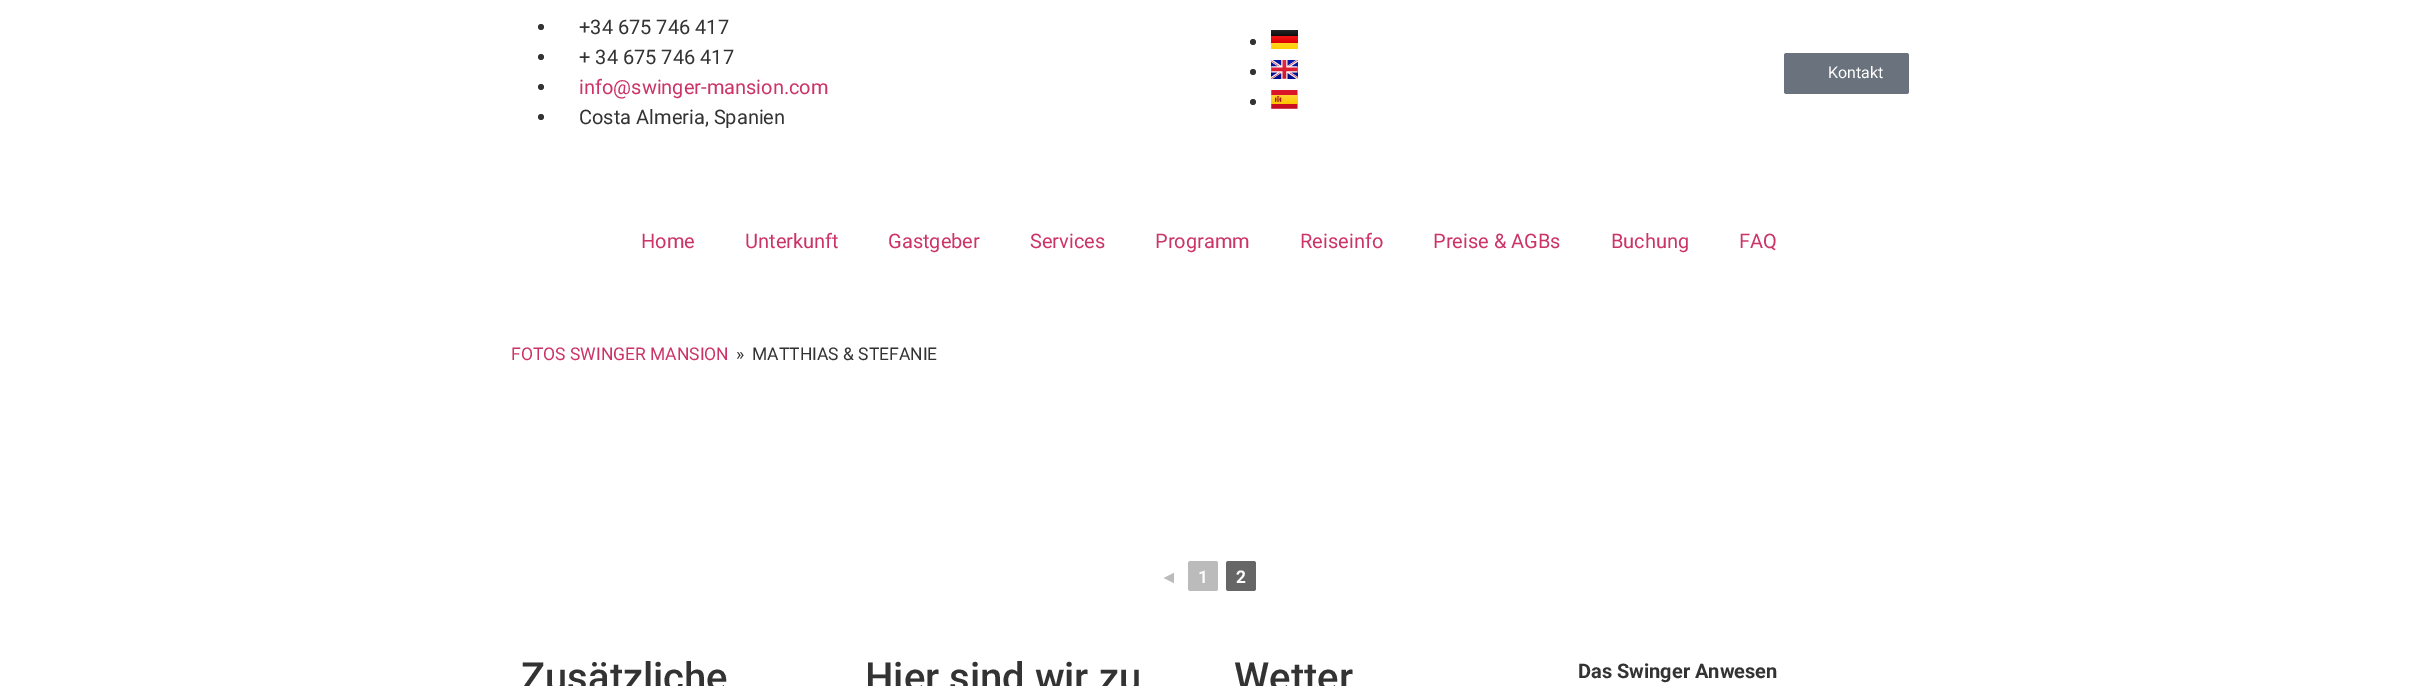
%!PS
<< /PageSize [2417 686] >> setpagedevice
/rgb { dup -16 bitshift 255 div exch dup -8 bitshift 255 and 255 div exch 255 and 255 div setrgbcolor } def
/font { [ exch dup neg 0 0 3 -1 roll 0 0 ] selectfont } def
/text { moveto show } def
/circle { newpath 0 360 arc closepath } def
/roundrect { 5 dict begin { /r /h /w /y /x } { exch def } forall
  x r add y moveto x w add y 2 copy h add r arct x w add y h add x 1 index r arct
  x y h add x y r arct x y 2 copy exch w add exch r arct closepath end } def
/picture { 5 dict begin { /h /w /y /x /name } { exch def } forall
  gsave x y translate w h scale
  w h 8 [w 0 0 h 0 0] name (r) file false 3 colorimage grestore end } def
0 686 translate 1 -1 scale
4 setmiterlimit
/s1 { /Roboto-Regular 20 font 16#333333 rgb } def
/s2 { /Roboto-Regular 20 font 16#CC3366 rgb } def
/s3 { /Roboto-Regular 16 font 16#FFFFFF rgb } def
/s4 { /Roboto-Regular 17.5 font 16#CC3366 rgb } def
/s5 { /Roboto-Regular 17.5 font 16#333333 rgb } def
/s6 { /LiberationSans-Bold 17.5 font 16#BBBBBB rgb } def
/s7 { /Roboto-Bold 17.5 font 16#FFFFFF rgb } def
/s8 { /Roboto-Medium 40 font 16#333333 rgb } def
/s9 { /Roboto-Bold 20 font 16#333333 rgb } def
16#FFFFFF rgb
0 0 2417 686 rectfill
16#333333 rgb
541 27 3 circle fill
s1
(+34 675 746 417) 579 34 text
541 57 3 circle fill
(+ 34 675 746 417) 579 64 text
541 87 3 circle fill
s2
(info@swinger-mansion.com) 579 94 text
16#333333 rgb
541 117 3 circle fill
(Costa Almeria, Spanien) 579 124 text
gsave 1271 30 moveto 1298 30 lineto 1298 36 lineto 1271 36 lineto closepath clip newpath
<< /ShadingType 2 /ColorSpace /DeviceRGB /Coords [1284 30 1284 36] /Extend [true true] /Function << /FunctionType 2 /Domain [0 1] /C0 [0.149 0.149 0.149] /C1 [0.051 0.051 0.051] /N 1 >> >> shfill grestore
1253 42 3 circle fill
gsave 1271 36 moveto 1298 36 lineto 1298 43 lineto 1271 43 lineto closepath clip newpath
<< /ShadingType 2 /ColorSpace /DeviceRGB /Coords [1284 36 1284 43] /Extend [true true] /Function << /FunctionType 2 /Domain [0 1] /C0 [0.941 0.082 0.082] /C1 [0.871 0 0] /N 1 >> >> shfill grestore
gsave 1271 43 moveto 1298 43 lineto 1298 49 lineto 1271 49 lineto closepath clip newpath
<< /ShadingType 2 /ColorSpace /DeviceRGB /Coords [1284 43 1284 49] /Extend [true true] /Function << /FunctionType 2 /Domain [0 1] /C0 [1 0.835 0.129] /C1 [1 0.812 0] /N 1 >> >> shfill grestore
1253 72 3 circle fill
(pic1.raw) 1271 60 27 19 picture
1253 102 3 circle fill
(pic2.raw) 1271 90 27 19 picture
16#69727D rgb
1784 53 125 41 2.5 roundrect fill
s3
(Kontakt) 1828 78 text
s2
(Home) 641 248 text
(Unterkunft) 745 248 text
(Gastgeber) 888 248 text
(Services) 1030 248 text
(Programm) 1155 248 text
(Reiseinfo) 1300 248 text
(Preise & AGBs) 1433 248 text
(Buchung) 1611 248 text
(FAQ) 1739 248 text
s4
(FOTOS SWINGER MANSION) 511 360 text
s5
(») 736 360 text
(MATTHIAS & STEFANIE) 752 360 text
s6
(◄) 1160 583 text
1188 561 30 30 2.5 roundrect fill
s7
(1) 1198 583 text
16#666666 rgb
1226 561 30 30 2.5 roundrect fill
s7
(2) 1236 583 text
s8
(Zusätzliche) 521 691 text
(Hier sind wir zu) 865 691 text
(Wetter) 1234 691 text
s9
(Das Swinger Anwesen) 1578 678 text
showpage
